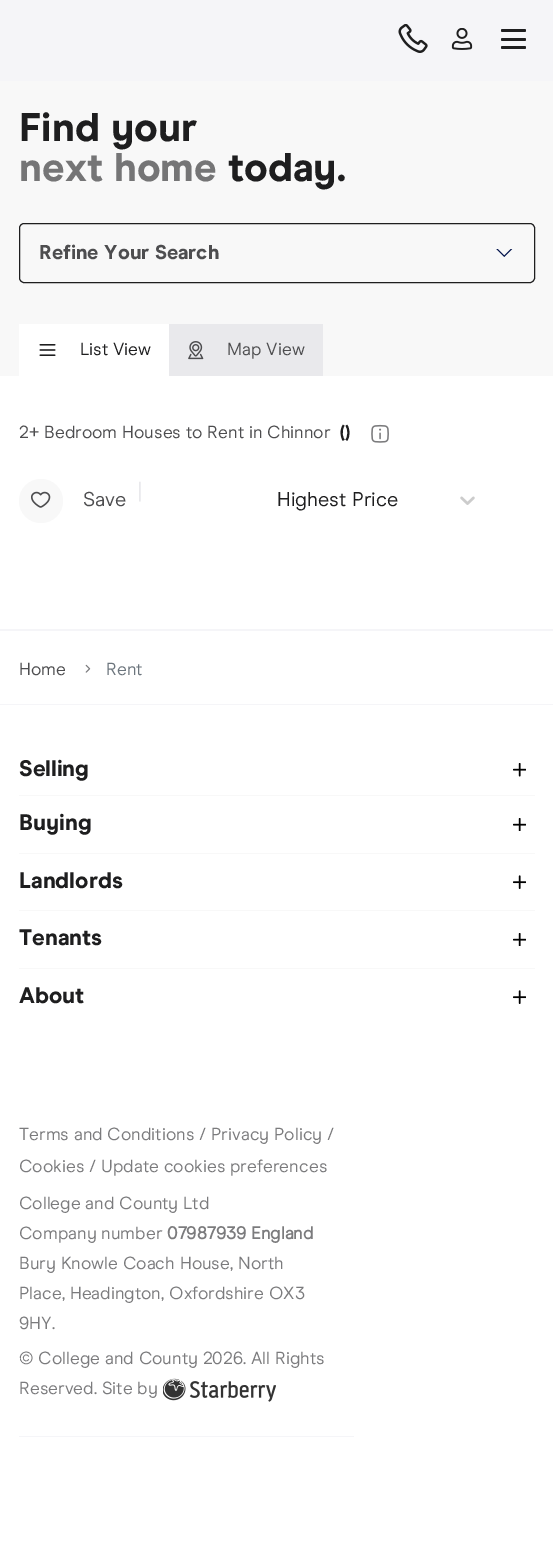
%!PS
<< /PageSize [553 1545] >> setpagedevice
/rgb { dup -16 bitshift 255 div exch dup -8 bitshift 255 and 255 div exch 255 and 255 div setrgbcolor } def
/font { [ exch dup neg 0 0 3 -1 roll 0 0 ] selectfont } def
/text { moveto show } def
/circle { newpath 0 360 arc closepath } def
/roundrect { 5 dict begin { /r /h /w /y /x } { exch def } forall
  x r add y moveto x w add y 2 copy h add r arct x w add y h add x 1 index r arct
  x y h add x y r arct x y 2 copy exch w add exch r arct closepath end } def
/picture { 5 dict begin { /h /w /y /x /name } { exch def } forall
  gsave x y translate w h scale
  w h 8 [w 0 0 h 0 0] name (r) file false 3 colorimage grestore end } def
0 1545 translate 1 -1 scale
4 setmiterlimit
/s1 { /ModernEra-ExtraBold 40 font 16#1E1E1F rgb } def
/s2 { /ModernEra-ExtraBold 40 font 16#757576 rgb } def
/s3 { /ModernEra-ExtraBold 20 font 16#4D4D4F rgb } def
/s4 { /ModernEra-Regular 17.5 font 16#1E1E1F rgb } def
/s5 { /ModernEra-Regular 17.5 font 16#4D4D4F rgb } def
/s6 { /ModernEra-ExtraBold 17.5 font 16#1E1E1F rgb } def
/s7 { /ModernEra-Regular 20 font 16#4D4D4F rgb } def
/s8 { /ModernEra-Regular 21 font 16#E9E9EC rgb } def
/s9 { /ModernEra-Regular 20 font 16#1E1E1F rgb } def
/s10 { /ModernEra-Regular 17.5 font 16#6C757D rgb } def
/s11 { /ModernEra-ExtraBold 22.5 font 16#1E1E1F rgb } def
/s12 { /ModernEra-Regular 17.5 font 16#7B7B7D rgb } def
/s13 { /ModernEra-Bold 17.5 font 16#7B7B7D rgb } def
16#FFFFFF rgb
0 0 553 1545 rectfill
16#F5F5F8 rgb
0 0 553 81 rectfill
(pic1.raw) 398 24 30 29 picture
(pic2.raw) 451 28 22 22 picture
16#1E1E1F rgb
501 29 25 3 1.5 roundrect fill
501 38 25 3 1.5 roundrect fill
501 46 25 3 1.5 roundrect fill
16#F8F8F8 rgb
0 81 553 295 rectfill
s1
(Find your) 19 141 text
s2
(next home) 19 181 text
s1
(today.) 228 181 text
19.5 223.5 515 59 4.5 roundrect stroke
s3
(Refine Your Search) 39 259 text
(pic3.raw) 496 249 17 8 picture
16#FFFFFF rgb
19 324 150 52 rectfill
(pic4.raw) 39 344 17 12 picture
s4
(List View) 80 355 text
16#E9E9EC rgb
169 324 154 52 rectfill
(pic5.raw) 188 341 16 19 picture
s5
(Map View) 227 355 text
(2+ Bedroom Houses to Rent in Chinnor) 19 438 text
s6
(\(\)) 340 438 text
(pic6.raw) 371 424 18 19 picture
16#F8F8F8 rgb
41 501 22 circle fill
(pic7.raw) 31 491 20 17 picture
s7
(Save) 83 506 text
s8
(|) 138 498 text
s9
(Highest Price) 277 506 text
(pic8.raw) 460 496 15 9 picture
16#F5F5F8 rgb
0 629 553 2 rectfill
0 704 553 1 rectfill
s5
(Home) 19 675 text
(pic9.raw) 85 664 6 9 picture
s10
(Rent) 106 675 text
16#F8F8F8 rgb
19 795 516 1 rectfill
s11
(Selling) 19 776 text
(pic10.raw) 513 763 13 14 picture
16#F8F8F8 rgb
19 853 516 1 rectfill
s11
(Buying) 19 830 text
(pic11.raw) 513 818 13 13 picture
16#F8F8F8 rgb
19 910 516 1 rectfill
s11
(Landlords) 19 888 text
(pic12.raw) 513 875 13 14 picture
16#F8F8F8 rgb
19 968 516 1 rectfill
s11
(Tenants) 19 945 text
(pic11.raw) 513 933 13 13 picture
(About) 19 1003 text
(pic12.raw) 513 990 13 14 picture
16#F5F5F8 rgb
19 1436 335 1 rectfill
s12
(Terms and Conditions) 19 1140 text
(/ Privacy Policy) 199 1140 text
(/) 327 1140 text
(Cookies) 19 1172 text
(/ Update cookies preferences) 89 1172 text
(College and County Ltd) 19 1209 text
(Company number) 19 1239 text
s13
(07987939 England) 167 1239 text
s12
(Bury Knowle Coach House, North) 19 1269 text
(Place, Headington, Oxfordshire OX3) 19 1299 text
(9HY.) 19 1329 text
(© College and County 2026. All Rights) 19 1364 text
(Reserved. Site by) 19 1394 text
(pic13.raw) 163 1378 113 24 picture
showpage
